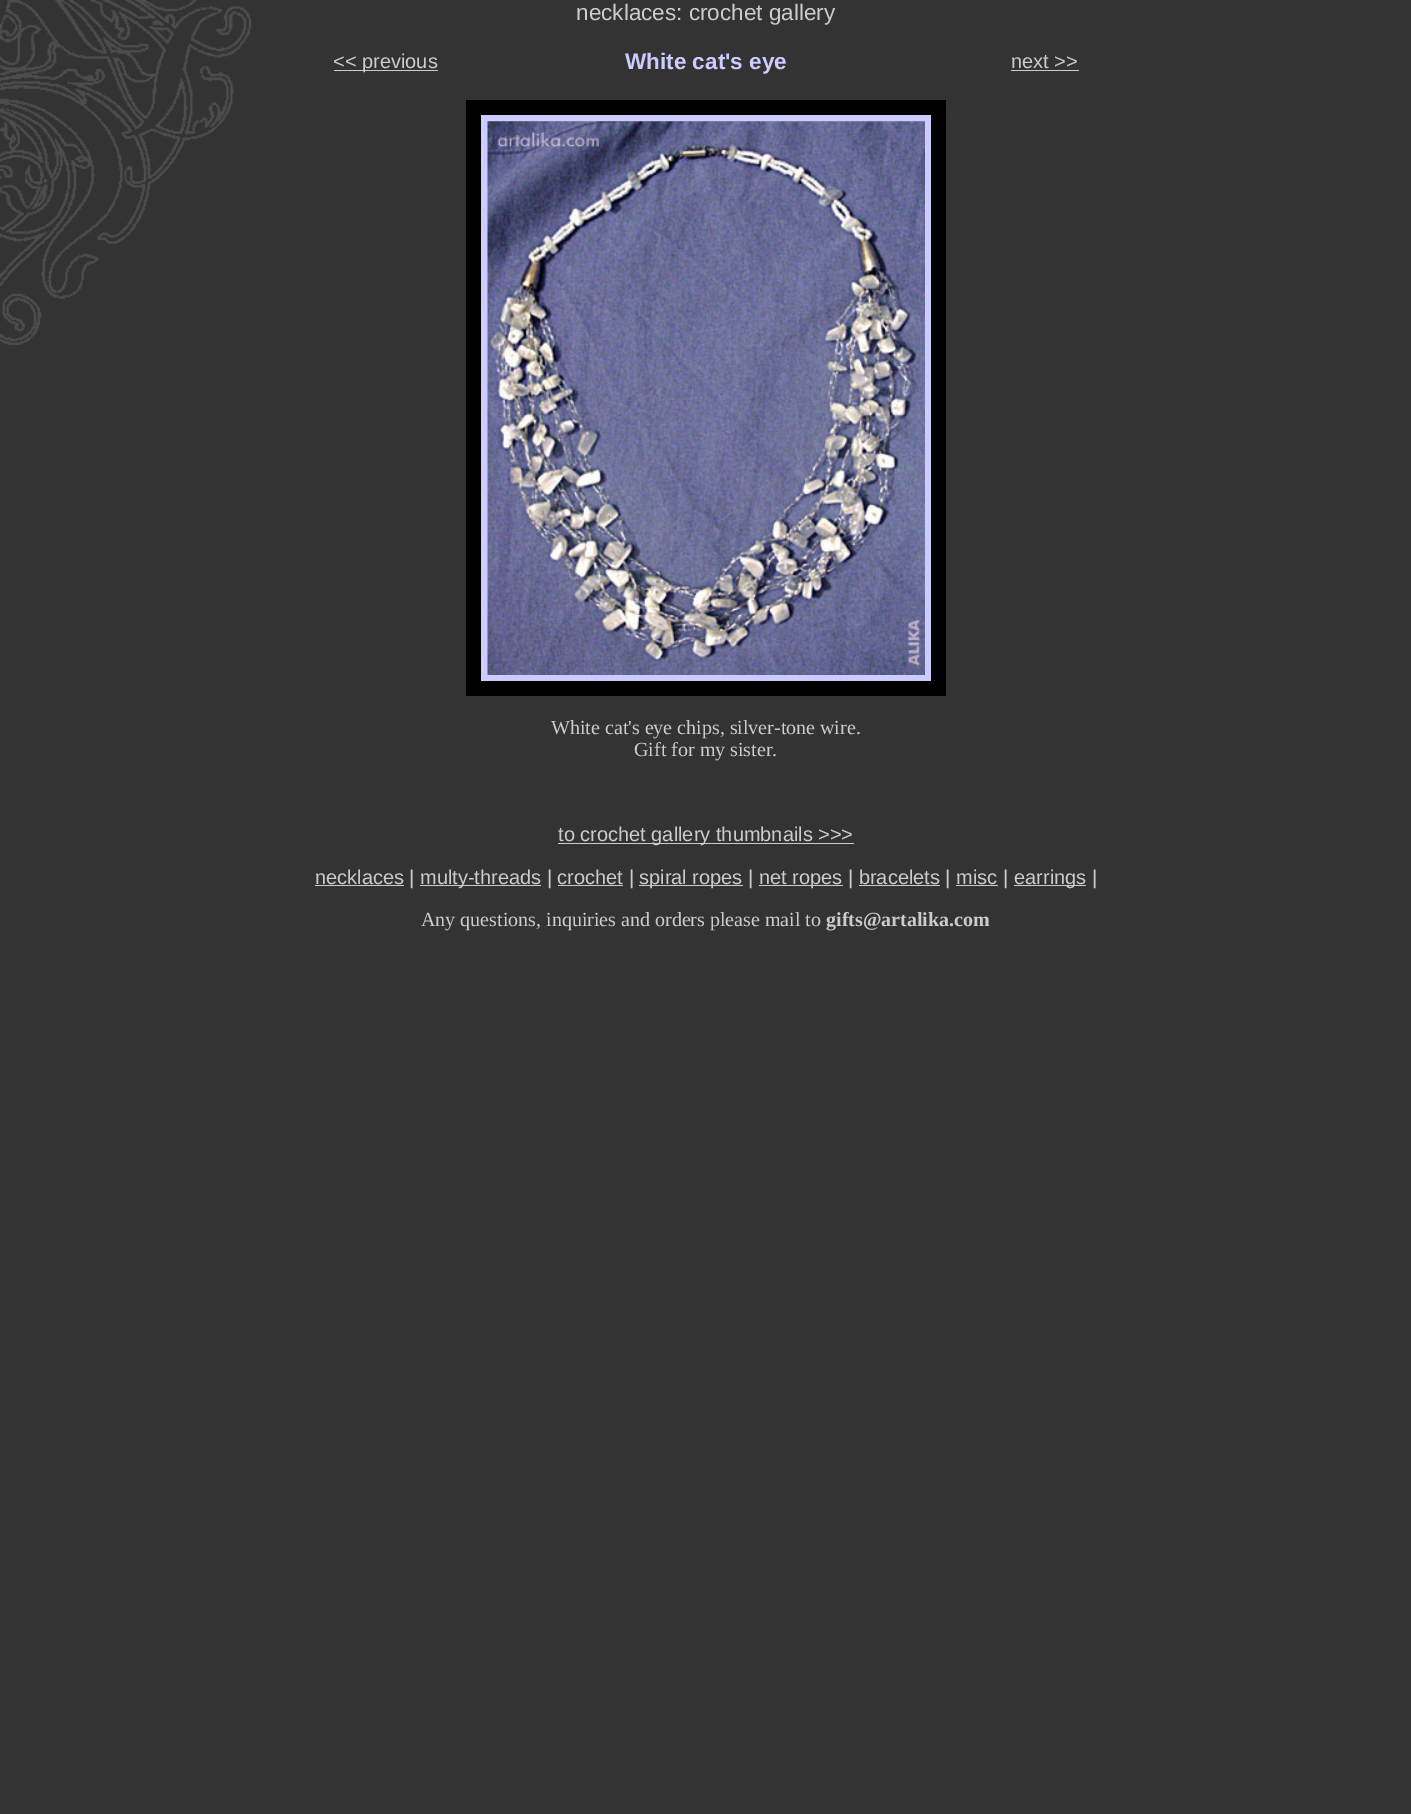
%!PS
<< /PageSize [1411 1814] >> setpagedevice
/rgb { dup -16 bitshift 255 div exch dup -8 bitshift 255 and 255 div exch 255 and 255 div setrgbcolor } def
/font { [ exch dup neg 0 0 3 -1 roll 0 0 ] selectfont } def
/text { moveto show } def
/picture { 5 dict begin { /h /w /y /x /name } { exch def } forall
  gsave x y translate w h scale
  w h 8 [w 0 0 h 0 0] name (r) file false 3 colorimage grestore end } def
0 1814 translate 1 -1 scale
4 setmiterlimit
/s1 { /LiberationSans-Regular 22.5 font 16#CCCCCC rgb } def
/s2 { /LiberationSans-Regular 20 font 16#CCCCCC rgb } def
/s3 { /LiberationSans-Bold 22.5 font 16#CCCCFF rgb } def
/s4 { /LiberationSerif-Regular 20 font 16#CCCCCC rgb } def
/s5 { /LiberationSerif-Bold 20 font 16#CCCCCC rgb } def
16#333333 rgb
0 0 1411 1814 rectfill
(pic1.raw) 0 0 252 345 picture
s1
(necklaces: crochet gallery) 576 20 text
334 70 104 1 rectfill
s2
(<< previous) 333 68 text
s3
(White cat's eye) 625 69 text
s2
(next >>) 1011 68 text
1011 70 68 1 rectfill
16#000000 rgb
466 100 480 596 rectfill
16#CCCCFF rgb
481 115 450 566 rectfill
(pic2.raw) 487 121 438 554 picture
s4
(White cat's eye chips, silver-tone wire.) 551 734 text
(Gift for my sister.) 634 756 text
558 843 296 1 rectfill
s2
(to crochet gallery thumbnails >>>) 558 841 text
315 885 89 1 rectfill
(necklaces |) 315 884 text
420 885 121 1 rectfill
(multy-threads | crochet |) 420 884 text
558 885 65 1 rectfill
639 885 104 1 rectfill
(spiral ropes |) 639 884 text
759 885 84 1 rectfill
(net ropes | bracelets | misc |) 759 884 text
859 885 81 1 rectfill
956 885 42 1 rectfill
1014 885 72 1 rectfill
(earrings |) 1014 884 text
s4
(Any questions, inquiries and orders please mail to) 421 926 text
s5
(gifts@artalika.com) 826 926 text
showpage
